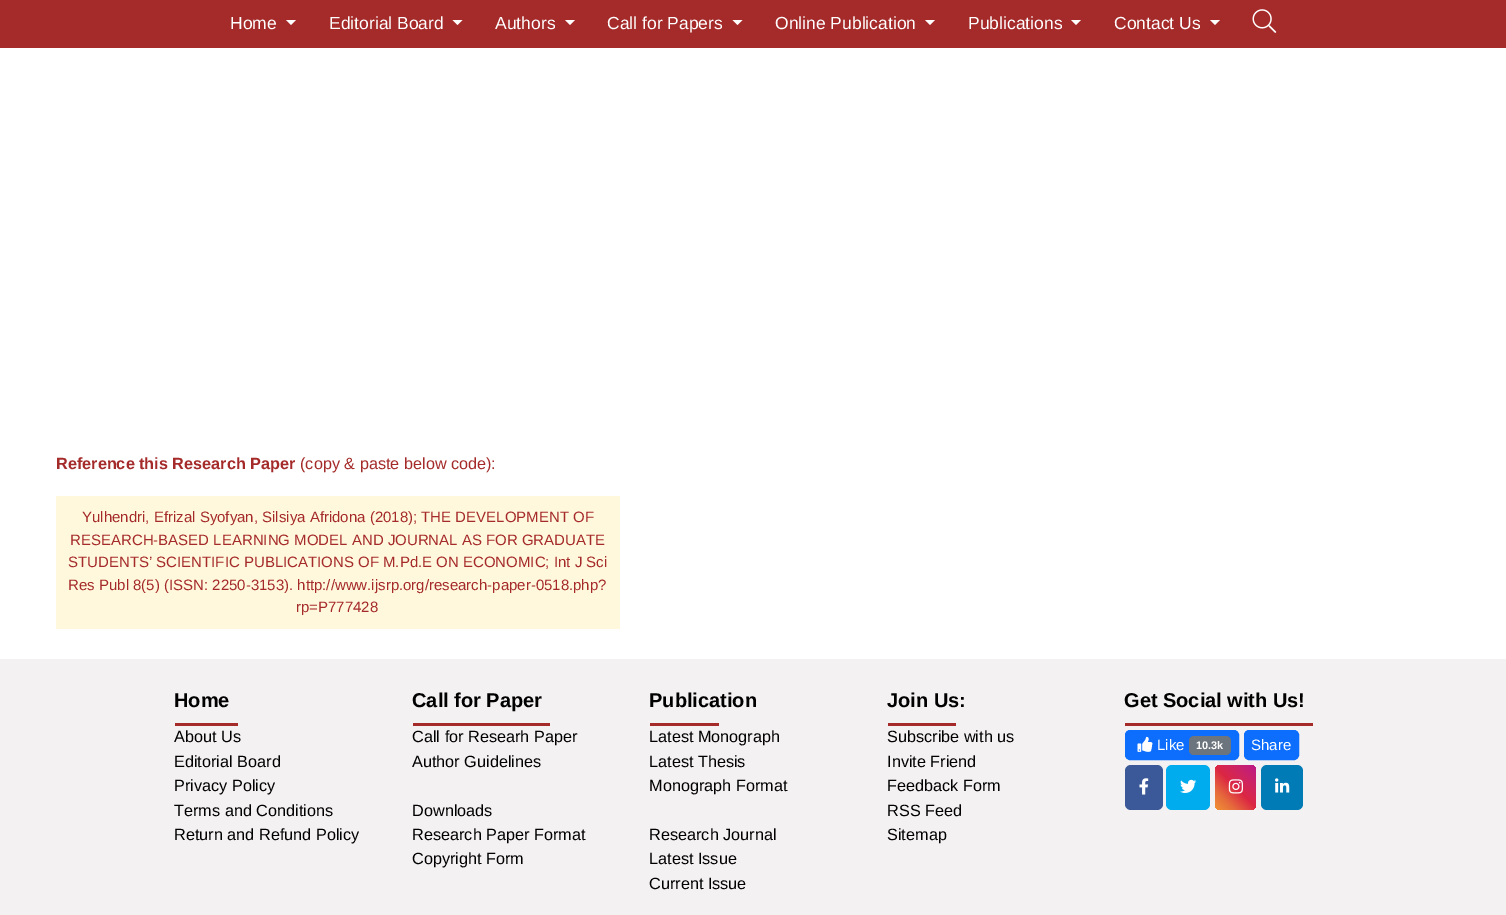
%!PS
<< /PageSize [1506 915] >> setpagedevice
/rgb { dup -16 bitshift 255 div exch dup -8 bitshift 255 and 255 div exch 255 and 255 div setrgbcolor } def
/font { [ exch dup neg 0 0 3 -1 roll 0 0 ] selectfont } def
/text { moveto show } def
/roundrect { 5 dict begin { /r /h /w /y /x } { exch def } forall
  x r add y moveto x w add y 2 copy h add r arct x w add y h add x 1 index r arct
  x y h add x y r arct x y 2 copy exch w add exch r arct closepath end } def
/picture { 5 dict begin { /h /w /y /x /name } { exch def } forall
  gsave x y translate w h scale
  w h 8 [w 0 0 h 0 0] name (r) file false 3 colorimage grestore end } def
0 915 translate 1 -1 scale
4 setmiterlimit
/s1 { /LiberationSans-Regular 17.5 font 16#FFFFFF rgb } def
/s2 { /LiberationSans-Bold 16.25 font 16#A52A2A rgb } def
/s3 { /LiberationSans-Regular 16.25 font 16#A52A2A rgb } def
/s4 { /LiberationSans-Regular 15 font 16#A52A2A rgb } def
/s5 { /LiberationSans-Bold 20 font 16#000000 rgb } def
/s6 { /LiberationSans-Regular 16.25 font 16#000000 rgb } def
/s7 { /LiberationSans-Regular 15 font 16#FFFFFF rgb } def
/s8 { /LiberationSans-Bold 11 font 16#FFFFFF rgb } def
16#FFFFFF rgb
0 0 1506 915 rectfill
16#A52A2A rgb
0 0 1506 48 rectfill
s1
(Home) 230 29 text
286 20 moveto 296 20 lineto 291 25 lineto closepath fill
(Editorial Board) 329 29 text
452.5 20 moveto 462.5 20 lineto 457.5 25 lineto closepath fill
(Authors) 495 29 text
565 20 moveto 575 20 lineto 570 25 lineto closepath fill
(Call for Papers) 607 29 text
732.5 20 moveto 742.5 20 lineto 737.5 25 lineto closepath fill
(Online Publication) 775 29 text
925 20 moveto 935 20 lineto 930 25 lineto closepath fill
(Publications) 968 29 text
1071 20 moveto 1081 20 lineto 1076 25 lineto closepath fill
(Contact Us) 1114 29 text
1210 20 moveto 1220 20 lineto 1215 25 lineto closepath fill
(pic1.raw) 1252 9 25 24 picture
s2
(Reference this Research Paper) 56 469 text
s3
(\(copy & paste below code\):) 300 469 text
16#FFF8DC rgb
56 496 564 133 rectfill
s4
(Yulhendri, Efrizal Syofyan, Silsiya Afridona \(2018\); THE DEVELOPMENT OF) 82 522 text
(RESEARCH-BASED LEARNING MODEL AND JOURNAL AS FOR GRADUATE) 70 545 text
(STUDENTS’ SCIENTIFIC PUBLICATIONS OF M.Pd.E ON ECONOMIC; Int J Sci) 68 567 text
(Res Publ 8\(5\) \(ISSN: 2250-3153\). http://www.ijsrp.org/research-paper-0518.php?) 68 590 text
(rp=P777428) 296 612 text
16#F3F1F1 rgb
0 659 1506 256 rectfill
s5
(Home) 174 707 text
16#A52A2A rgb
175 723 63 3 rectfill
s6
(About Us) 174 742 text
(Editorial Board) 174 767 text
(Privacy Policy) 174 791 text
(Terms and Conditions) 174 816 text
(Return and Refund Policy) 174 840 text
s5
(Call for Paper) 412 707 text
16#A52A2A rgb
413 723 137 3 rectfill
s6
(Call for Researh Paper) 412 742 text
(Author Guidelines) 412 767 text
(Downloads) 412 816 text
(Research Paper Format) 412 840 text
(Copyright Form) 412 864 text
s5
(Publication) 649 707 text
16#A52A2A rgb
650 723 69 3 rectfill
s6
(Latest Monograph) 649 742 text
(Latest Thesis) 649 767 text
(Monograph Format) 649 791 text
(Research Journal) 649 840 text
(Latest Issue) 649 864 text
(Current Issue) 649 889 text
s5
(Join Us:) 887 707 text
16#A52A2A rgb
888 723 68 3 rectfill
s6
(Subscribe with us) 887 742 text
(Invite Friend) 887 767 text
(Feedback Form) 887 791 text
(RSS Feed) 887 816 text
(Sitemap) 887 840 text
s5
(Get Social with Us!) 1124 707 text
16#A52A2A rgb
1125 723 188 3 rectfill
16#0D6EFD rgb
1125.5 730.5 113 29 4.5 roundrect gsave fill grestore
stroke
(pic2.raw) 1137 736 16 16 picture
s7
(Like) 1157 750 text
16#6C757D rgb
1189 736 42 19 5 roundrect fill
s8
(10.3k) 1196 749 text
16#0D6EFD rgb
1244.5 730.5 54 29 4.5 roundrect gsave fill grestore
stroke
s7
(Share) 1251 750 text
16#3B5998 rgb
1125 765 38 45 6 roundrect fill
(pic3.raw) 1139 778 10 17 picture
16#00ACED rgb
1166 765 44 45 6 roundrect fill
(pic4.raw) 1180 779 17 14 picture
gsave 1215 765 41 45 6 roundrect clip newpath
<< /ShadingType 2 /ColorSpace /DeviceRGB /Coords [1214 809 1257 766] /Extend [true true] /Function << /FunctionType 3 /Domain [0 1] /Functions [<< /FunctionType 2 /Domain [0 1] /C0 [0.941 0.58 0.2] /C1 [0.902 0.408 0.235] /N 1 >> << /FunctionType 2 /Domain [0 1] /C0 [0.902 0.408 0.235] /C1 [0.863 0.153 0.263] /N 1 >> << /FunctionType 2 /Domain [0 1] /C0 [0.863 0.153 0.263] /C1 [0.8 0.137 0.4] /N 1 >> << /FunctionType 2 /Domain [0 1] /C0 [0.8 0.137 0.4] /C1 [0.737 0.094 0.533] /N 1 >>] /Bounds [0.25 0.5 0.75] /Encode [0 1 0 1 0 1 0 1] >> >> shfill grestore
(pic5.raw) 1228 779 15 15 picture
16#007BB6 rgb
1261 765 42 45 6 roundrect fill
(pic6.raw) 1275 778 15 15 picture
showpage
